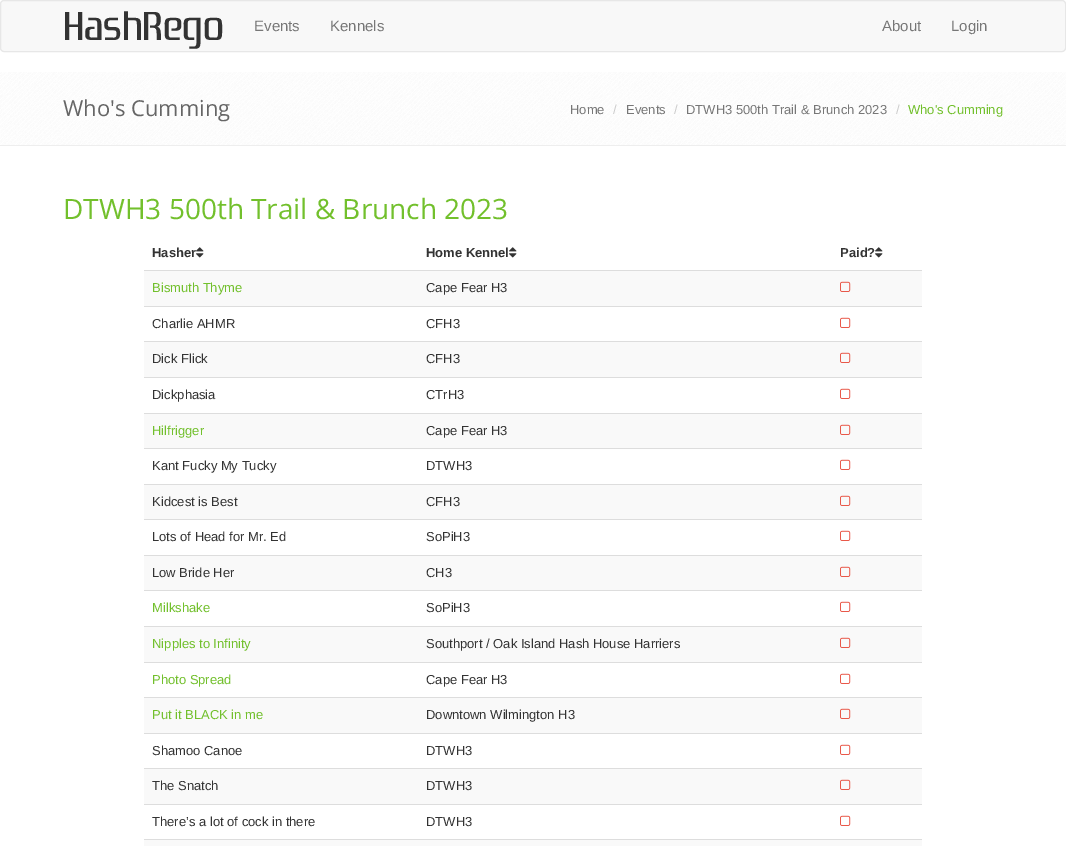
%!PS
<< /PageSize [1066 846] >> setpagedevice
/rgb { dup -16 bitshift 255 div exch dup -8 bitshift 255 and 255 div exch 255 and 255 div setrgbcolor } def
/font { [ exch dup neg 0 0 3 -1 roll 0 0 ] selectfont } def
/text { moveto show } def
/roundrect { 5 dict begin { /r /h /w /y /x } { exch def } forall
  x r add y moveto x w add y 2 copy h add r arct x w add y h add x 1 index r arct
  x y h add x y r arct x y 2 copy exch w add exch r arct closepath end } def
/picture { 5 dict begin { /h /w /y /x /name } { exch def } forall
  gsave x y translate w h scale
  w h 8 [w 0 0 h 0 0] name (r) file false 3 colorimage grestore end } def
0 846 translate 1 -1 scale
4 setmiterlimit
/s1 { /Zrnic-Regular 40 font 16#333333 rgb } def
/s2 { /LiberationSans-Regular 15 font 16#777777 rgb } def
/s3 { /OpenSans-Regular 22 font 16#666666 rgb } def
/s4 { /LiberationSans-Regular 13 font 16#777777 rgb } def
/s5 { /LiberationSans-Regular 13 font 16#CCCCCC rgb } def
/s6 { /LiberationSans-Regular 13 font 16#72C02C rgb } def
/s7 { /OpenSans-Regular 28 font 16#72C02C rgb } def
/s8 { /LiberationSans-Bold 13 font 16#333333 rgb } def
/s9 { /LiberationSans-Regular 13 font 16#333333 rgb } def
16#FFFFFF rgb
0 0 1066 846 rectfill
16#F8F8F8 rgb
0.5 0.5 1065 51 3.5 roundrect gsave fill grestore
16#E7E7E7 rgb
stroke
s1
(HashRego) 63 40 text
s2
(Events) 254 31 text
(Kennels) 330 31 text
(About) 882 31 text
(Login) 951 31 text
(pic1.raw) 0 72 1066 73 picture
16#EEEEEE rgb
0 145 1066 1 rectfill
s3
(Who's Cumming) 63 116 text
s4
(Home) 570 114 text
s5
(/) 613 114 text
s4
(Events) 626 114 text
s5
(/) 674 114 text
s4
(DTWH3 500th Trail & Brunch 2023) 686 114 text
s5
(/) 896 114 text
s6
(Who's Cumming) 908 114 text
s7
(DTWH3 500th Trail & Brunch 2023) 63 219 text
s8
(Hasher) 152 257 text
(pic2.raw) 196 247 8 11 picture
(Home Kennel) 426 257 text
(pic2.raw) 509 247 8 11 picture
(Paid?) 840 257 text
(pic2.raw) 875 247 8 11 picture
16#F9F9F9 rgb
144 271 778 35 rectfill
16#DDDDDD rgb
144 270 778 1 rectfill
(pic3.raw) 840 281 11 11 picture
s6
(Bismuth Thyme) 152 292 text
s9
(Cape Fear H3) 426 292 text
16#DDDDDD rgb
144 306 778 1 rectfill
(pic4.raw) 840 317 11 11 picture
s9
(Charlie AHMR) 152 328 text
(CFH3) 426 328 text
16#F9F9F9 rgb
144 342 778 35 rectfill
16#DDDDDD rgb
144 341 778 1 rectfill
(pic3.raw) 840 352 11 11 picture
s9
(Dick Flick) 152 363 text
(CFH3) 426 363 text
16#DDDDDD rgb
144 377 778 1 rectfill
(pic4.raw) 840 388 11 11 picture
s9
(Dickphasia) 152 399 text
(CTrH3) 426 399 text
16#F9F9F9 rgb
144 414 778 34 rectfill
16#DDDDDD rgb
144 413 778 1 rectfill
(pic3.raw) 840 424 11 11 picture
s6
(Hilfrigger) 152 435 text
s9
(Cape Fear H3) 426 435 text
16#DDDDDD rgb
144 448 778 1 rectfill
(pic4.raw) 840 459 11 11 picture
s9
(Kant Fucky My Tucky) 152 470 text
(DTWH3) 426 470 text
16#F9F9F9 rgb
144 485 778 34 rectfill
16#DDDDDD rgb
144 484 778 1 rectfill
(pic3.raw) 840 495 11 11 picture
s9
(Kidcest is Best) 152 506 text
(CFH3) 426 506 text
16#DDDDDD rgb
144 519 778 1 rectfill
(pic4.raw) 840 530 11 11 picture
s9
(Lots of Head for Mr. Ed) 152 541 text
(SoPiH3) 426 541 text
16#F9F9F9 rgb
144 556 778 34 rectfill
16#DDDDDD rgb
144 555 778 1 rectfill
(pic3.raw) 840 566 11 11 picture
s9
(Low Bride Her) 152 577 text
(CH3) 426 577 text
16#DDDDDD rgb
144 590 778 1 rectfill
(pic4.raw) 840 601 11 11 picture
s6
(Milkshake) 152 612 text
s9
(SoPiH3) 426 612 text
16#F9F9F9 rgb
144 627 778 35 rectfill
16#DDDDDD rgb
144 626 778 1 rectfill
(pic3.raw) 840 637 11 11 picture
s6
(Nipples to Infinity) 152 648 text
s9
(Southport / Oak Island Hash House Harriers) 426 648 text
16#DDDDDD rgb
144 662 778 1 rectfill
(pic4.raw) 840 673 11 11 picture
s6
(Photo Spread) 152 684 text
s9
(Cape Fear H3) 426 684 text
16#F9F9F9 rgb
144 698 778 35 rectfill
16#DDDDDD rgb
144 697 778 1 rectfill
(pic3.raw) 840 708 11 11 picture
s6
(Put it BLACK in me) 152 719 text
s9
(Downtown Wilmington H3) 426 719 text
16#DDDDDD rgb
144 733 778 1 rectfill
(pic4.raw) 840 744 11 11 picture
s9
(Shamoo Canoe) 152 755 text
(DTWH3) 426 755 text
16#F9F9F9 rgb
144 769 778 35 rectfill
16#DDDDDD rgb
144 768 778 1 rectfill
(pic3.raw) 840 779 11 11 picture
s9
(The Snatch) 152 790 text
(DTWH3) 426 790 text
16#DDDDDD rgb
144 804 778 1 rectfill
(pic4.raw) 840 815 11 11 picture
s9
(There’s a lot of cock in there) 152 826 text
(DTWH3) 426 826 text
16#F9F9F9 rgb
144 840 778 6 rectfill
16#DDDDDD rgb
144 839 778 1 rectfill
showpage
